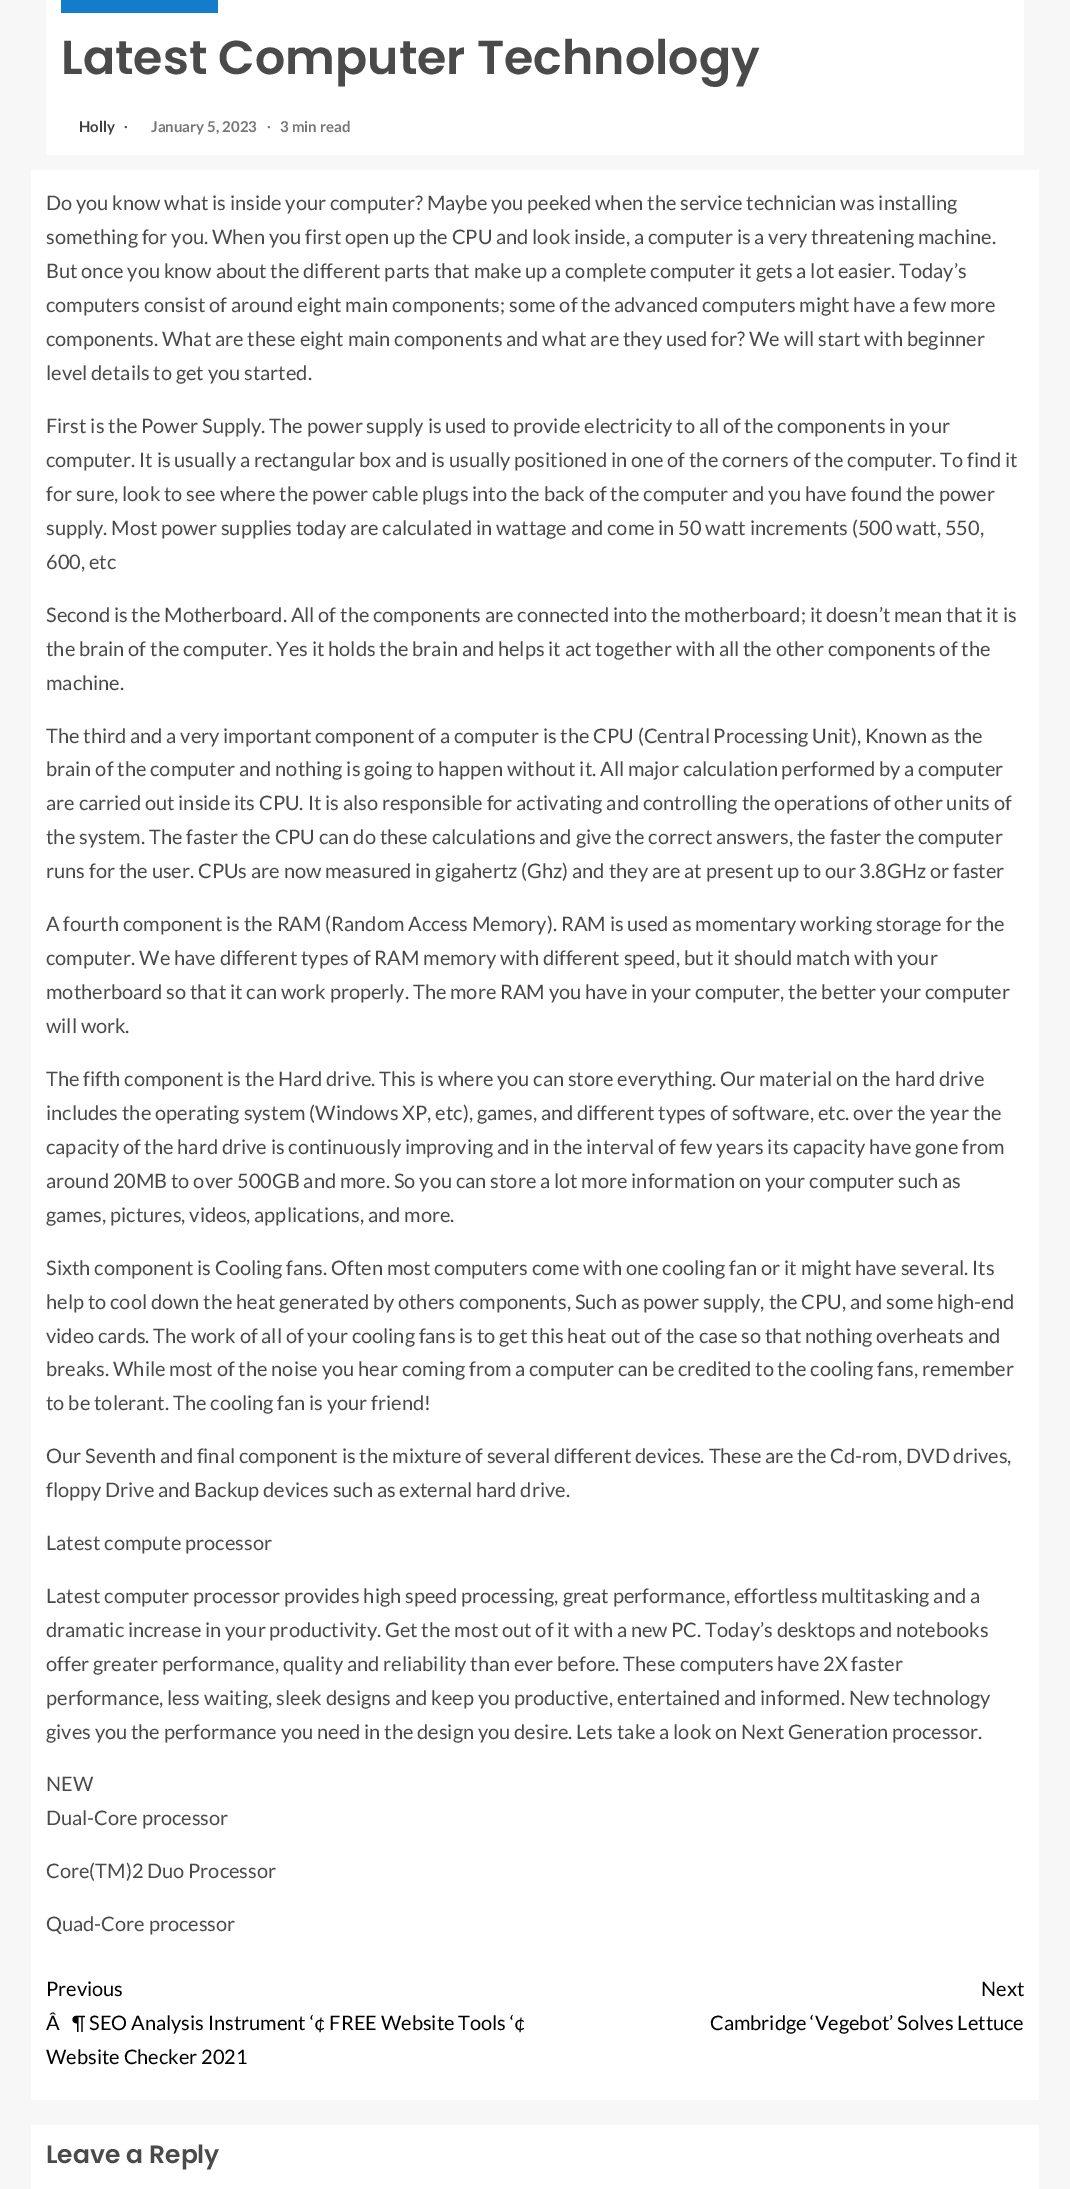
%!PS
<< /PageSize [1070 2189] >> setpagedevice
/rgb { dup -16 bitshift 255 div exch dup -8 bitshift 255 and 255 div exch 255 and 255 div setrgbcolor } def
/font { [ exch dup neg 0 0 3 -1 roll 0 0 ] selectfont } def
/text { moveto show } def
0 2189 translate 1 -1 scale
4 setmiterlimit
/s1 { /Poppins-SemiBold 47.5 font 16#4A4A4A rgb } def
/s2 { /Lato-Bold 15 font 16#404040 rgb } def
/s3 { /LiberationSerif-Bold 15 font 16#4A4A4A rgb } def
/s4 { /Lato-Bold 15 font 16#777777 rgb } def
/s5 { /LiberationSerif-Bold 15 font 16#777777 rgb } def
/s6 { /Lato-Regular 20 font 16#4A4A4A rgb } def
/s7 { /Lato-Regular 20 font 16#000000 rgb } def
/s8 { /Poppins-SemiBold 25 font 16#4A4A4A rgb } def
16#F7F7F7 rgb
0 0 1070 2189 rectfill
16#FFFFFF rgb
46 0 978 155 rectfill
16#137DC9 rgb
61 0 157 13 rectfill
s1
(Latest Computer Technology) 61 74 text
s2
(Holly) 79 132 text
s3
(∙) 124 132 text
s4
(January 5, 2023) 151 132 text
s5
(∙) 267 132 text
s4
(3 min read) 280 132 text
16#FFFFFF rgb
31 170 1008 1930 rectfill
s6
(Do you know what is inside your computer? Maybe you peeked when the service technician was installing) 46 210 text
(something for you. When you first open up the CPU and look inside, a computer is a very threatening machine.) 46 244 text
(But once you know about the different parts that make up a complete computer it gets a lot easier. Today’s) 46 278 text
(computers consist of around eight main components; some of the advanced computers might have a few more) 46 312 text
(components. What are these eight main components and what are they used for? We will start with beginner) 46 346 text
(level details to get you started.) 46 380 text
(First is the Power Supply. The power supply is used to provide electricity to all of the components in your) 46 433 text
(computer. It is usually a rectangular box and is usually positioned in one of the corners of the computer. To find it) 46 467 text
(for sure, look to see where the power cable plugs into the back of the computer and you have found the power) 46 501 text
(supply. Most power supplies today are calculated in wattage and come in 50 watt increments \(500 watt, 550,) 46 535 text
(600, etc) 46 569 text
(Second is the Motherboard. All of the components are connected into the motherboard; it doesn’t mean that it is) 46 622 text
(the brain of the computer. Yes it holds the brain and helps it act together with all the other components of the) 46 656 text
(machine.) 46 690 text
(The third and a very important component of a computer is the CPU \(Central Processing Unit\), Known as the) 46 743 text
(brain of the computer and nothing is going to happen without it. All major calculation performed by a computer) 46 776 text
(are carried out inside its CPU. It is also responsible for activating and controlling the operations of other units of) 46 810 text
(the system. The faster the CPU can do these calculations and give the correct answers, the faster the computer) 46 844 text
(runs for the user. CPUs are now measured in gigahertz \(Ghz\) and they are at present up to our 3.8GHz or faster) 46 878 text
(A fourth component is the RAM \(Random Access Memory\). RAM is used as momentary working storage for the) 46 931 text
(computer. We have different types of RAM memory with different speed, but it should match with your) 46 965 text
(motherboard so that it can work properly. The more RAM you have in your computer, the better your computer) 46 999 text
(will work.) 46 1033 text
(The fifth component is the Hard drive. This is where you can store everything. Our material on the hard drive) 46 1086 text
(includes the operating system \(Windows XP, etc\), games, and different types of software, etc. over the year the) 46 1120 text
(capacity of the hard drive is continuously improving and in the interval of few years its capacity have gone from) 46 1154 text
(around 20MB to over 500GB and more. So you can store a lot more information on your computer such as) 46 1188 text
(games, pictures, videos, applications, and more.) 46 1222 text
(Sixth component is Cooling fans. Often most computers come with one cooling fan or it might have several. Its) 46 1275 text
(help to cool down the heat generated by others components, Such as power supply, the CPU, and some high-end) 46 1309 text
(video cards. The work of all of your cooling fans is to get this heat out of the case so that nothing overheats and) 46 1343 text
(breaks. While most of the noise you hear coming from a computer can be credited to the cooling fans, remember) 46 1376 text
(to be tolerant. The cooling fan is your friend!) 46 1410 text
(Our Seventh and final component is the mixture of several different devices. These are the Cd-rom, DVD drives,) 46 1463 text
(floppy Drive and Backup devices such as external hard drive.) 46 1497 text
(Latest compute processor) 46 1550 text
(Latest computer processor provides high speed processing, great performance, effortless multitasking and a) 46 1603 text
(dramatic increase in your productivity. Get the most out of it with a new PC. Today’s desktops and notebooks) 46 1637 text
(offer greater performance, quality and reliability than ever before. These computers have 2X faster) 46 1671 text
(performance, less waiting, sleek designs and keep you productive, entertained and informed. New technology) 46 1705 text
(gives you the performance you need in the design you desire. Lets take a look on Next Generation processor.) 46 1739 text
(NEW) 46 1791 text
(Dual-Core processor) 46 1825 text
(Core\(TM\)2 Duo Processor) 46 1878 text
(Quad-Core processor) 46 1931 text
s7
(Previous) 46 1996 text
(Â) 46 2030 text
(¶ SEO Analysis Instrument ‘¢ FREE Website Tools ‘¢) 72 2030 text
(Website Checker 2021) 46 2064 text
(Next) 981 1996 text
(Cambridge ‘Vegebot’ Solves Lettuce) 710 2030 text
16#FFFFFF rgb
31 2125 1008 64 rectfill
s8
(Leave a Reply) 46 2163 text
showpage
